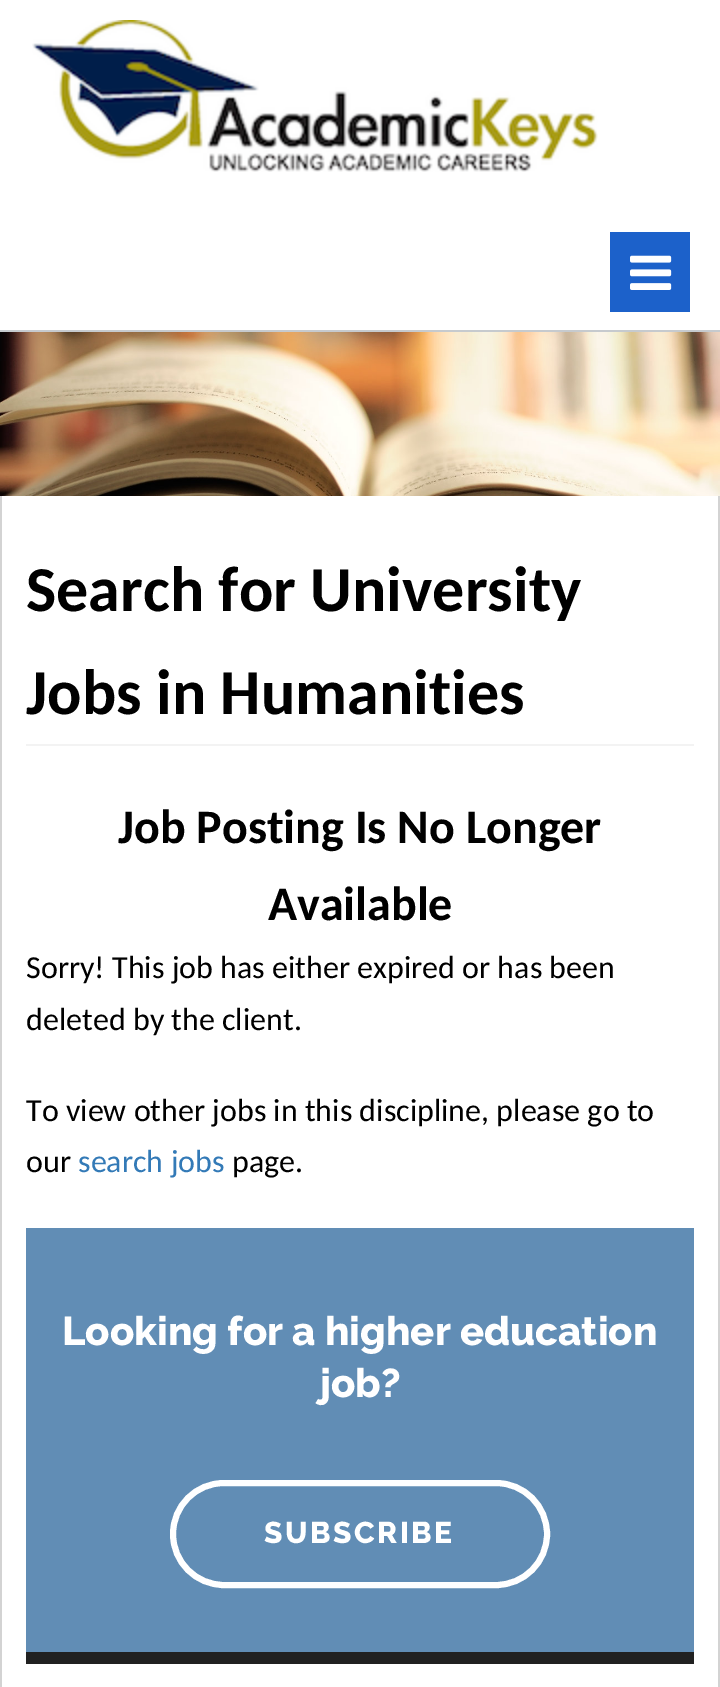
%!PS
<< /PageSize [720 1687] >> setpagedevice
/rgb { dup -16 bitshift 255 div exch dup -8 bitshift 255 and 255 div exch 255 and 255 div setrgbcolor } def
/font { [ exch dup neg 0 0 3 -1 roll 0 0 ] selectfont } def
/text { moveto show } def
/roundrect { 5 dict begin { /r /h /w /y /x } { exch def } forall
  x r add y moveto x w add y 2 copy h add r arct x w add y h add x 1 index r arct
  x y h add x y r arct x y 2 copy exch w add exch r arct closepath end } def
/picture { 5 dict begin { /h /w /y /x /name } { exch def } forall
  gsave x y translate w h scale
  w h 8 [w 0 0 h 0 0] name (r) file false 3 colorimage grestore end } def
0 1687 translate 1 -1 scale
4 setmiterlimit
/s1 { /Carlito-Bold 64 font 16#000000 rgb } def
/s2 { /Carlito-Bold 48 font 16#000000 rgb } def
/s3 { /Carlito-Regular 32 font 16#000000 rgb } def
/s4 { /Carlito-Regular 32 font 16#337AB7 rgb } def
/s5 { /Raleway-ExtraBold 40 font 16#FFFFFF rgb } def
16#FFFFFF rgb
0 0 720 1687 rectfill
16#C6CACE rgb
0 330 720 2 rectfill
(pic1.raw) 32 20 566 152 picture
16#1C61CA rgb
610 232 80 80 rectfill
(pic2.raw) 630 255 42 35 picture
(pic3.raw) 0 332 720 164 picture
16#D3D3D3 rgb
718 496 2 1191 rectfill
0 496 2 1191 rectfill
16#F3F3F3 rgb
26 744 668 2 rectfill
s1
(Search for University) 26 611 text
(Jobs in Humanities) 26 714 text
s2
(Job Posting Is No Longer) 118 843 text
(Available) 268 920 text
s3
(Sorry! This job has either expired or has been) 26 978 text
(deleted by the client.) 26 1030 text
(To view other jobs in this discipline, please go to) 26 1121 text
(our) 26 1172 text
s4
(search jobs) 78 1172 text
s3
(page.) 232 1172 text
16#618DB5 rgb
26 1228 668 424 rectfill
s5
(Looking for a higher education) 62 1345 text
(job?) 320 1397 text
6 setlinewidth
173 1483 374 102 51 roundrect stroke
/Raleway-ExtraBold 30 font
264 1543 moveto 2.5 0 (SUBSCRIBE) ashow
16#212121 rgb
26 1652 668 12 rectfill
showpage
